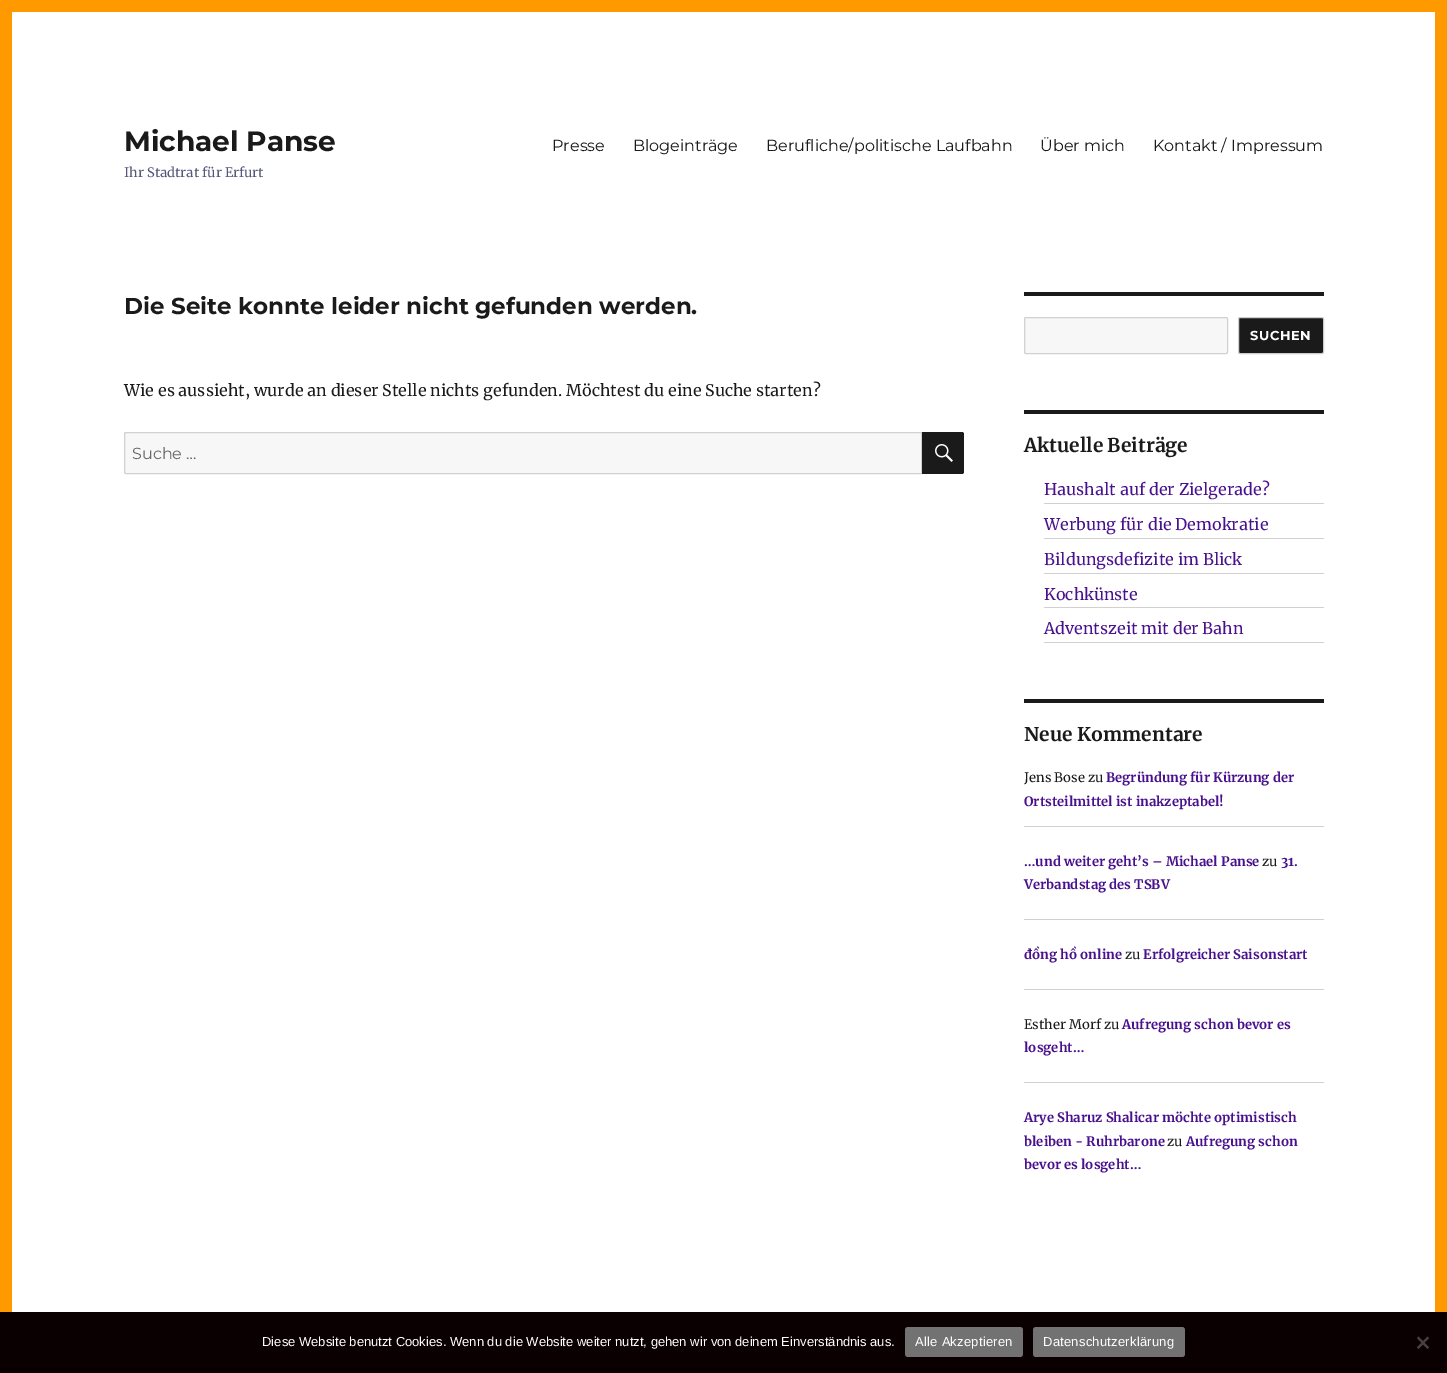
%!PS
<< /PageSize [1447 1373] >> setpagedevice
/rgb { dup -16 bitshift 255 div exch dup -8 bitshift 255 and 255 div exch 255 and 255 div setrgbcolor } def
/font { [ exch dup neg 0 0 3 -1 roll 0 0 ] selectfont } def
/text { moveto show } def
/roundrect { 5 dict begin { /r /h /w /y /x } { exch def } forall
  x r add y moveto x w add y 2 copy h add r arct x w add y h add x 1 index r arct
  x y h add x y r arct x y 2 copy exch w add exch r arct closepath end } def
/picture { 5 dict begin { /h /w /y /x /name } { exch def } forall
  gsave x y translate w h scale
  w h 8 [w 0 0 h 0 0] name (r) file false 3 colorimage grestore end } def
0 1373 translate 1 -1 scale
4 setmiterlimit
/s1 { /Montserrat-Thin 28 font 16#1A1A1A rgb } def
/s2 { /Merriweather-Regular 13 font 16#54587A rgb } def
/s3 { /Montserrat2-Thin 16 font 16#1A1A1A rgb } def
/s4 { /Montserrat-Thin 23 font 16#1A1A1A rgb } def
/s5 { /Merriweather-Regular 16 font 16#1A1A1A rgb } def
/s6 { /Montserrat2-Thin 16 font 16#686868 rgb } def
/s7 { /Merriweather-Bold 19 font 16#1A1A1A rgb } def
/s8 { /Merriweather-Regular 16 font 16#49118E rgb } def
/s9 { /Merriweather-Regular 13 font 16#1A1A1A rgb } def
/s10 { /Merriweather-Bold 13 font 16#49118E rgb } def
/s11 { /LiberationSans-Regular 13 font 16#FFFFFF rgb } def
16#FF9900 rgb
0 0 1447 1373 rectfill
16#FFFFFF rgb
12 12 1423 1300 rectfill
s1
(Michael Panse) 124 151 text
s2
(Ihr Stadtrat für Erfurt) 124 177 text
s3
(Presse) 552 151 text
(Blogeinträge) 633 151 text
(Berufliche/politische Laufbahn) 766 151 text
(Über mich) 1040 151 text
(Kontakt / Impressum) 1153 151 text
s4
(Die Seite konnte leider nicht gefunden werden.) 124 314 text
s5
(Wie es aussieht, wurde an dieser Stelle nichts gefunden. Möchtest du eine Suche starten?) 124 396 text
16#F7F7F7 rgb
126 432.5 moveto 921.5 432.5 lineto 921.5 473.5 lineto 126 473.5 lineto 125 473.5 124.5 473 124.5 472 curveto 124.5 434 lineto 124.5 433 125 432.5 126 432.5 curveto closepath gsave fill grestore
16#D1D1D1 rgb
stroke
s6
(Suche …) 132 459 text
16#1A1A1A rgb
922 432 moveto 962 432 lineto 963 432 964 433 964 434 curveto 964 472 lineto 964 473 963 474 962 474 curveto 922 474 lineto closepath fill
(pic1.raw) 935 444 18 18 picture
1024 292 300 4 rectfill
16#F7F7F7 rgb
1024.5 317.5 203 36 1.5 roundrect gsave fill grestore
16#D1D1D1 rgb
stroke
16#1A1A1A rgb
1238.5 317.5 85 36 1.5 roundrect gsave fill grestore
16#CCCCCC rgb
stroke
/Montserrat-Thin 13 font
16#FFFFFF rgb
1250 340 moveto 0.5 0 (SUCHEN) ashow
16#1A1A1A rgb
1024 410 300 4 rectfill
s7
(Aktuelle Beiträge) 1024 452 text
16#D1D1D1 rgb
1044 503 280 1 rectfill
s8
(Haushalt auf der Zielgerade?) 1044 495 text
16#D1D1D1 rgb
1044 538 280 1 rectfill
s8
(Werbung für die Demokratie) 1044 530 text
16#D1D1D1 rgb
1044 573 280 1 rectfill
s8
(Bildungsdefizite im Blick) 1044 565 text
16#D1D1D1 rgb
1044 607 280 1 rectfill
s8
(Kochkünste) 1044 600 text
16#D1D1D1 rgb
1044 642 280 1 rectfill
s8
(Adventszeit mit der Bahn) 1044 634 text
16#1A1A1A rgb
1024 699 300 4 rectfill
s7
(Neue Kommentare) 1024 741 text
s9
(Jens Bose zu) 1024 782 text
s10
(Begründung für Kürzung der) 1106 782 text
(Ortsteilmittel ist inakzeptabel!) 1024 806 text
16#D1D1D1 rgb
1024 826 300 1 rectfill
s10
(…und weiter geht’s – Michael Panse) 1024 866 text
s9
(zu) 1262 866 text
s10
(31.) 1281 866 text
(Verbandstag des TSBV) 1024 889 text
16#D1D1D1 rgb
1024 919 300 1 rectfill
s10
(đồng hồ online) 1024 959 text
s9
(zu) 1125 959 text
s10
(Erfolgreicher Saisonstart) 1143 959 text
16#D1D1D1 rgb
1024 989 300 1 rectfill
s9
(Esther Morf zu) 1024 1029 text
s10
(Aufregung schon bevor es) 1122 1029 text
(losgeht…) 1024 1052 text
16#D1D1D1 rgb
1024 1082 300 1 rectfill
s10
(Arye Sharuz Shalicar möchte optimistisch) 1024 1122 text
(bleiben - Ruhrbarone) 1024 1146 text
s9
(zu) 1167 1146 text
s10
(Aufregung schon) 1186 1146 text
(bevor es losgeht…) 1024 1169 text
16#0A0002 rgb
0 1312 1447 61 rectfill
s11
(Diese Website benutzt Cookies. Wenn du die Website weiter nutzt, gehen wir von deinem Einverständnis aus.) 262 1346 text
16#727272 rgb
905 1327 118 30 3 roundrect fill
16#FFFFFF rgb
915 1346 moveto 0.25 0 (Alle Akzeptieren) ashow
16#727272 rgb
1033 1327 152 30 3 roundrect fill
16#FFFFFF rgb
1043 1346 moveto 0.25 0 (Datenschutzerklärung) ashow
16#454041 rgb
1427.5 1336.5 moveto 1429 1338 lineto 1418.5 1349 lineto 1417 1347.5 lineto closepath fill
1417 1338 moveto 1418.5 1336.5 lineto 1429 1347.5 lineto 1427.5 1349 lineto closepath fill
showpage
